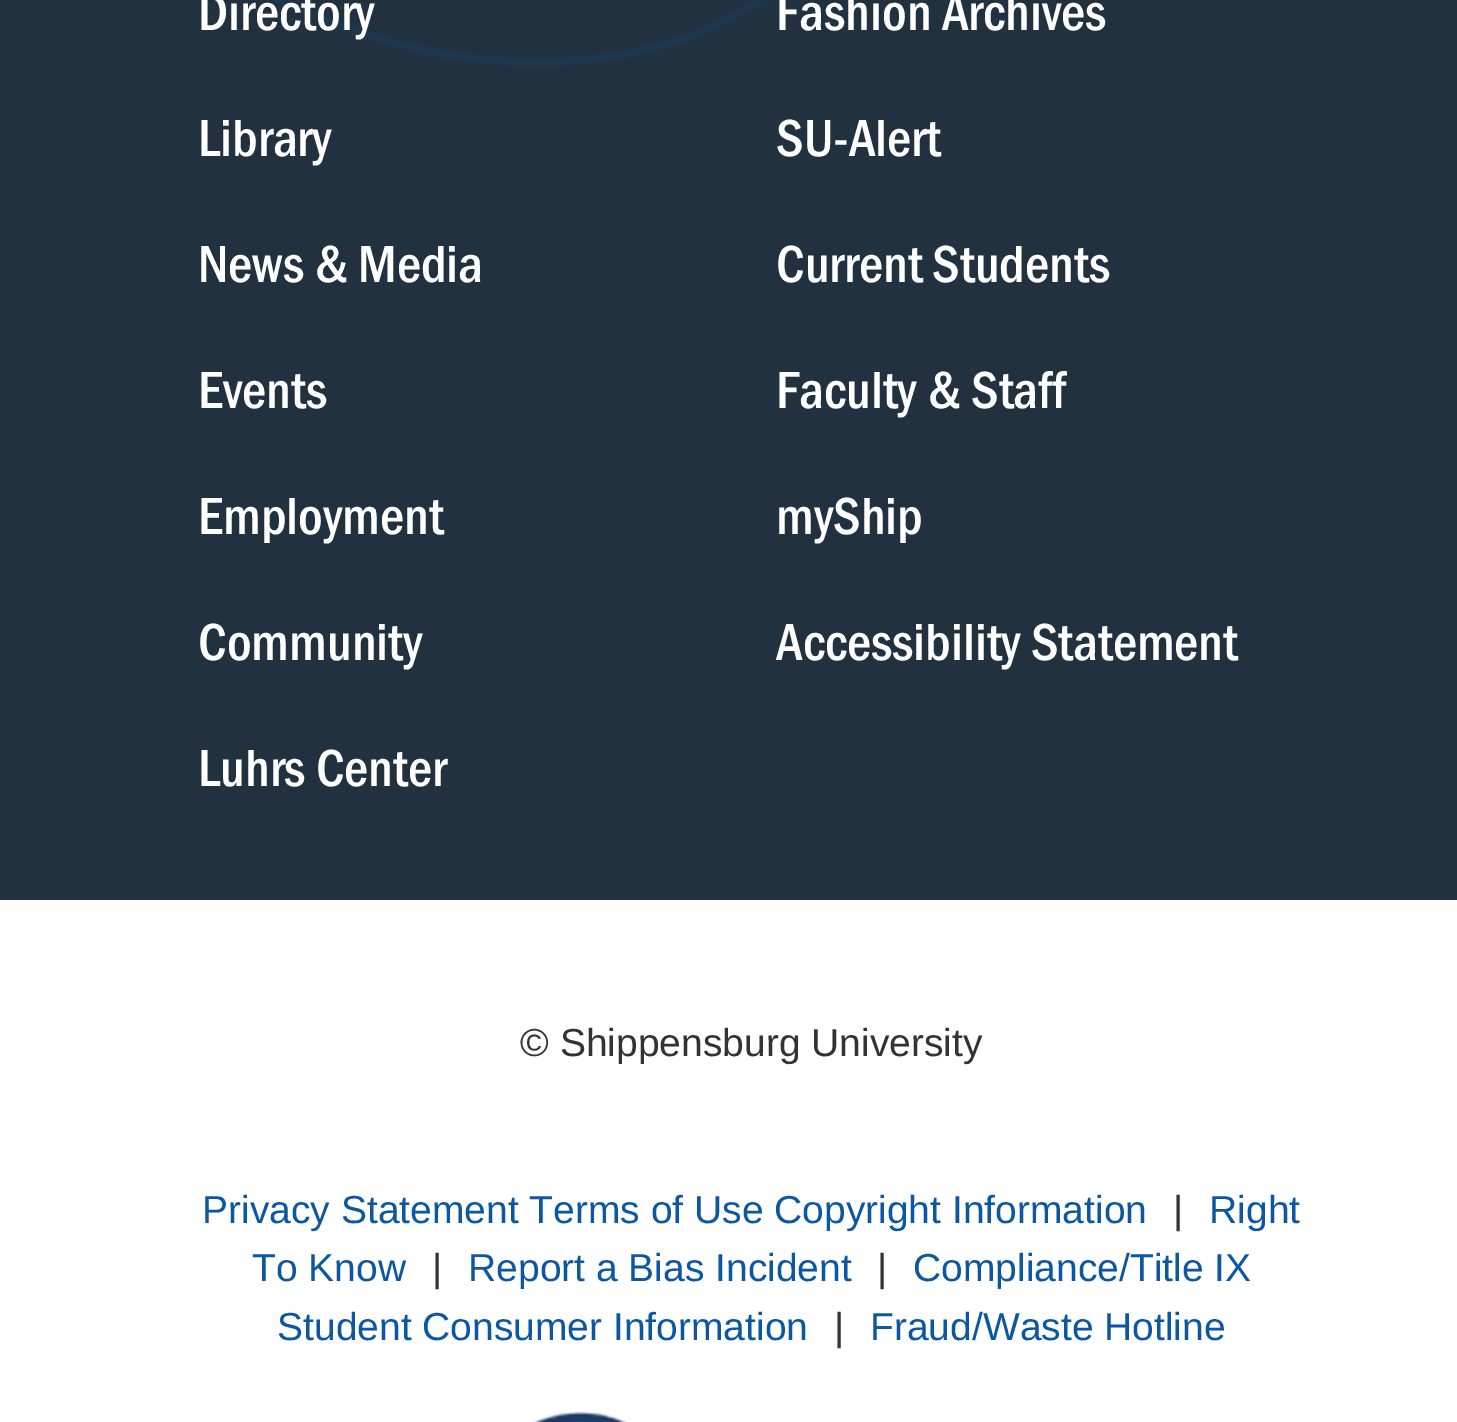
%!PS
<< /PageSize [1457 1422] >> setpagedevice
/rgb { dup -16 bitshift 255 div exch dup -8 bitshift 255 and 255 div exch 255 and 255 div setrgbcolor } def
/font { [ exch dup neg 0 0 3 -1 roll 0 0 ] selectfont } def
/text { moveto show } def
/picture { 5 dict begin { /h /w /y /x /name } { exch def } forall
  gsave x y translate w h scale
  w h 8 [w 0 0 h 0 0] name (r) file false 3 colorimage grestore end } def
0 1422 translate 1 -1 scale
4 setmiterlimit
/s1 { /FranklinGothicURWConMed-Regular 54 font 16#FFFFFF rgb } def
/s2 { /LiberationSans-Regular 39 font 16#333333 rgb } def
/s3 { /LiberationSans-Regular 39 font 16#0C57A2 rgb } def
16#FFFFFF rgb
0 0 1457 1422 rectfill
16#223140 rgb
0 0 1457 900 rectfill
(pic1.raw) 272 0 495 66 picture
s1
(Directory) 198 30 text
(Fashion Archives) 776 30 text
(Library) 198 156 text
(SU-Alert) 776 156 text
(News & Media) 198 282 text
(Current Students) 776 282 text
(Events) 198 408 text
(Faculty & Staff) 776 408 text
(Employment) 198 534 text
(myShip) 776 534 text
(Community) 198 660 text
(Accessibility Statement) 776 660 text
(Luhrs Center) 198 786 text
s2
(© Shippensburg University) 520 1056 text
s3
(Privacy Statement Terms of Use Copyright Information) 202 1223 text
s2
(|) 1173 1223 text
s3
(Right) 1209 1223 text
(To Know) 252 1281 text
s2
(|) 432 1281 text
s3
(Report a Bias Incident) 468 1281 text
s2
(|) 877 1281 text
s3
(Compliance/Title IX) 913 1281 text
(Student Consumer Information) 277 1340 text
s2
(|) 834 1340 text
s3
(Fraud/Waste Hotline) 870 1340 text
(pic2.raw) 531 1410 97 12 picture
showpage
